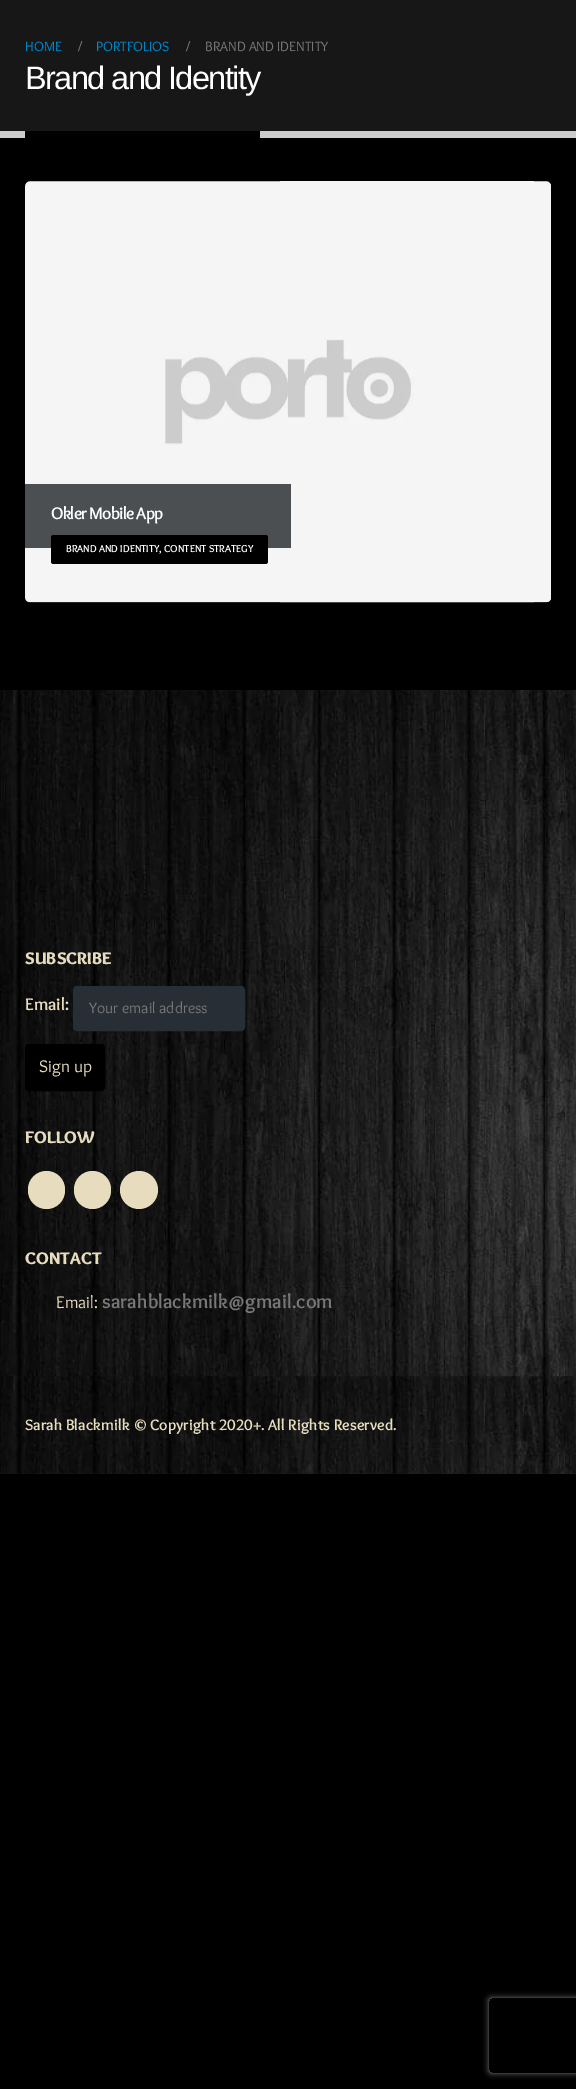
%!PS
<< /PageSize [576 2089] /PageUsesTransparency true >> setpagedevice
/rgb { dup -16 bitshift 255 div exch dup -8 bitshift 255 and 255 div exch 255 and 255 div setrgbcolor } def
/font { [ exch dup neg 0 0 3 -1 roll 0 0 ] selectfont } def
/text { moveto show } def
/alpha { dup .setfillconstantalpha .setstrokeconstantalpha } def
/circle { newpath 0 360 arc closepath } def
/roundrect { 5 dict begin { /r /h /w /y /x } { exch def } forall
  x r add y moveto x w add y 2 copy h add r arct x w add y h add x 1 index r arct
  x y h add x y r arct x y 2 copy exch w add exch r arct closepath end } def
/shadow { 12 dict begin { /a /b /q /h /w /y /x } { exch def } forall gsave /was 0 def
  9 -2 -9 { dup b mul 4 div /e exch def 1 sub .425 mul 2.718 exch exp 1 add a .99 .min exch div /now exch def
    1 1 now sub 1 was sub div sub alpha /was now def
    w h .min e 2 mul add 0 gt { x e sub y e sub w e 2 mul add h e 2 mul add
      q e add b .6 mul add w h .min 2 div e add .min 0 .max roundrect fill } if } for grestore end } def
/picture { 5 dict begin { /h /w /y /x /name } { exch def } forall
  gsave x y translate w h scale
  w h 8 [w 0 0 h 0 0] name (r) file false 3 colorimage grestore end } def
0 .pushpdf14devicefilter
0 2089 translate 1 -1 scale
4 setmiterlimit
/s1 { /Overlock-Regular 14 font 16#0088CC rgb } def
/s2 { /LiberationSerif-Bold 15 font 16#777777 rgb } def
/s3 { /Overlock-Regular 14 font 16#777777 rgb } def
/s4 { /Overlock-Bold 10.5 font 16#FFFFFF rgb } def
/s5 { /Overlock-Black 17.5 font 16#E7DDBE rgb } def
/s6 { /Overlock-Bold 17.5 font 16#E7DDBE rgb } def
/s7 { /Overlock-Regular 15.75 font 16#777777 rgb } def
/s8 { /Overlock-Regular 17.5 font 16#E7DDBE rgb } def
/s9 { /Overlock-Bold 20 font 16#777777 rgb } def
/s10 { /Overlock-Bold 15.75 font 16#E7DDBE rgb } def
16#000000 rgb
0 0 576 2089 rectfill
16#171717 rgb
0 0 576 131 rectfill
16#CCCCCC rgb
0 131 576 7 rectfill
s1
(HOME) 25 51 text
s2
(/) 78 51 text
s1
(PORTFOLIOS) 96 51 text
s2
(/) 186 51 text
s3
(BRAND AND IDENTITY) 205 51 text
/LiberationSans-Regular 32.5 font
16#FFFFFF rgb
25 89 moveto -1.6 0 (Brand and Identity) ashow
16#000000 rgb
25 131 235 7 rectfill
(pic1.raw) 25 181 526 422 picture
16#4B4F52 rgb
25 484 266 64 rectfill
/Overlock-Bold 17.5 font
16#FFFFFF rgb
51 519 moveto -0.9 0 (Okler Mobile App) ashow
16#000000 rgb
51 535 217 29 2.5 roundrect fill
s4
(BRAND AND IDENTITY, CONTENT STRATEGY) 66 552 text
(pic2.raw) 0 690 576 784 picture
s5
(SUBSCRIBE) 25 964 text
s6
(Email:) 25 1010 text
16#282E36 rgb
73.5 986.5 171 44 3.5 roundrect gsave fill grestore
stroke
s7
(Your email address) 89 1013 text
16#000000 rgb
25.5 1044.5 79 46 3.5 roundrect gsave fill grestore
stroke
s8
(Sign up) 39 1072 text
s5
(FOLLOW) 25 1143 text
28 1171 37 38 18.5 roundrect fill
74 1171 37 38 18.5 roundrect fill
16#000000 rgb
120 1174 38 37 18.5 1 0.3 shadow
16#E7DDBE rgb
139 1190 19 circle fill
(CONTACT) 25 1264 text
s8
(Email:) 56 1308 text
s9
(sarahblackmilk@gmail.com) 102 1308 text
(pic3.raw) 0 1376 576 98 picture
s10
(Sarah Blackmilk © Copyright 2020+. All Rights Reserved.) 25 1430 text
gsave
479 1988 moveto 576 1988 lineto 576 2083 lineto 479 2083 lineto closepath 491.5 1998 moveto 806.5 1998 lineto 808 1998 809 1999 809 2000.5 curveto 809 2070.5 lineto 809 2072 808 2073 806.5 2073 curveto 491.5 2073 lineto 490 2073 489 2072 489 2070.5 curveto 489 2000.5 lineto 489 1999 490 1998 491.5 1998 curveto closepath eoclip newpath
16#808080 rgb
489 1998 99 75 2.5 3 1 shadow
grestore
.poppdf14devicefilter showpage
